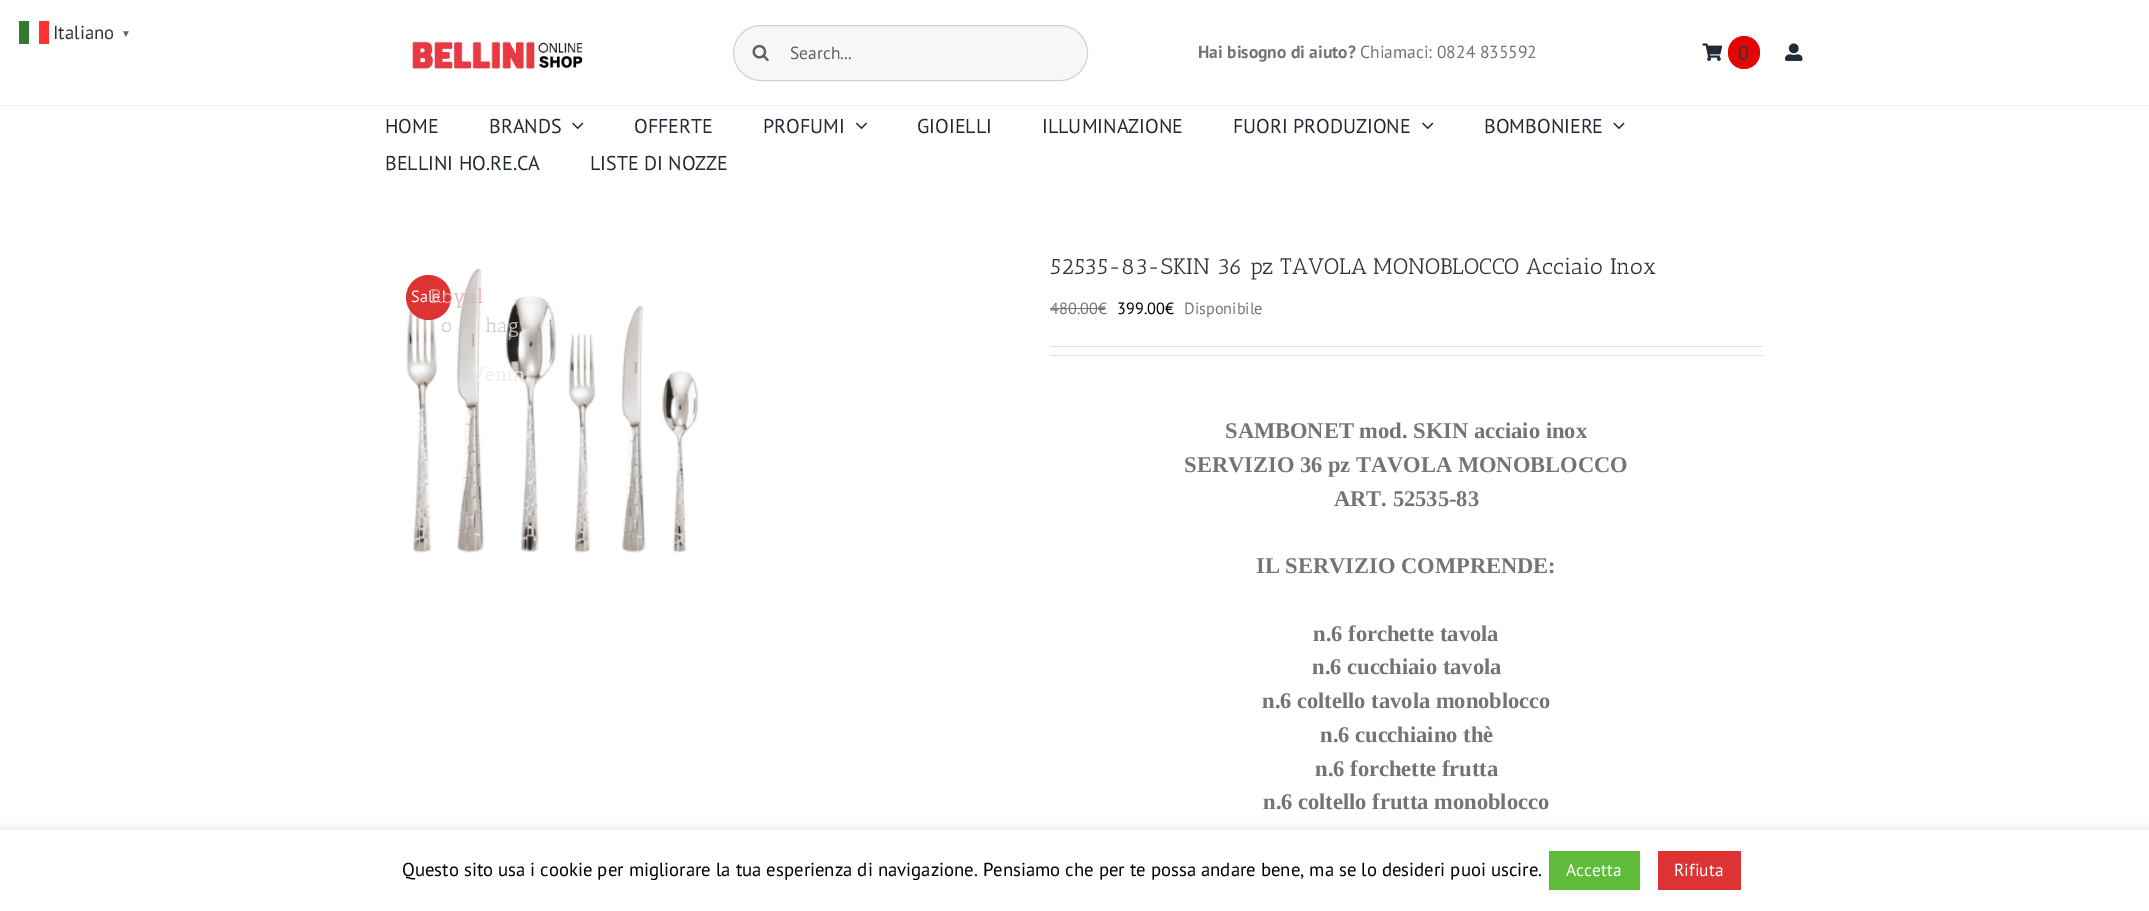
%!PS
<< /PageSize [2149 911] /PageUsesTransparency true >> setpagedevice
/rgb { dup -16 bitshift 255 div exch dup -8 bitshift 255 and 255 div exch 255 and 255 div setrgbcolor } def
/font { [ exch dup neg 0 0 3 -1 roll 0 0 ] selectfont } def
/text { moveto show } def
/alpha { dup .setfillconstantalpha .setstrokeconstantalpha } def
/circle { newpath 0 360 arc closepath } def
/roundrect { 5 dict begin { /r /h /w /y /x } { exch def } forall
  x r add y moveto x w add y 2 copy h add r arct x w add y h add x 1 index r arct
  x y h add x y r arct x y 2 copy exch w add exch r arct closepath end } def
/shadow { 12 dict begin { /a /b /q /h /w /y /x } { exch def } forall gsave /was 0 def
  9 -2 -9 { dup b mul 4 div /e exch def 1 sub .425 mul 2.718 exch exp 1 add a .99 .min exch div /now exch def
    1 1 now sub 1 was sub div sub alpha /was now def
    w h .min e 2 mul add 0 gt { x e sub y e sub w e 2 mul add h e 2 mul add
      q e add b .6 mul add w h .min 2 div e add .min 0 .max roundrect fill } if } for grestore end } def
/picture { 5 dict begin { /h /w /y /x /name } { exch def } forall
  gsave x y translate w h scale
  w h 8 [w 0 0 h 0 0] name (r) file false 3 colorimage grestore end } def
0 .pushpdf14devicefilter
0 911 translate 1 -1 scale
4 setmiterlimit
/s1 { /PTSans-Regular 18.75 font 16#333333 rgb } def
/s2 { /LiberationSerif-Bold 10 font 16#666666 rgb } def
/s3 { /PTSans-Regular 18.75 font 16#000000 rgb } def
/s4 { /PTSans-Regular 17.5 font 16#FFFFFF rgb } def
/s5 { /PTSans-Regular 17.5 font 16#606060 rgb } def
/s6 { /PTSans-Bold 17.5 font 16#747474 rgb } def
/s7 { /PTSans-Regular 17.5 font 16#747474 rgb } def
/s8 { /PTSans-Regular 20 font 16#333333 rgb } def
/s9 { /PTSans-Regular 20 font 16#212934 rgb } def
/s10 { /PTSans-Regular 16.25 font 16#FFFFFF rgb } def
/s11 { /AnticSlab-Regular 19.5 font 16#E7ABAA rgb } def
/s12 { /AnticSlab-Regular 19.5 font 16#CECBC9 rgb } def
/s13 { /AnticSlab-Regular 19.5 font 16#EDECEB rgb } def
/s14 { /AnticSlab-Regular 22.5 font 16#333333 rgb } def
/s15 { /PTSans-Regular 16.25 font 16#747474 rgb } def
/s16 { /PTSans-Regular 16.25 font 16#000000 rgb } def
/s17 { /LiberationSerif-Bold 22.5 font 16#747474 rgb } def
16#FFFFFF rgb
0 0 2149 911 rectfill
s1
(Italiano) 53 39 text
16#337933 rgb
19 21 10 23 rectfill
16#FD3333 rgb
39 21 10 23 rectfill
s2
(▼) 121 37 text
16#ACABAB rgb
0 829 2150 81 0 6 0.3 shadow
16#FFFFFF rgb
0 830 2149 81 rectfill
s3
(Questo sito usa i cookie per migliorare la tua esperienza di navigazione. Pensiamo che per te possa andare bene, ma se lo desideri puoi uscire.) 402 876 text
16#5FBC3A rgb
1549 851 91 39 rectfill
s4
(Accetta) 1566 876 text
16#DD3333 rgb
1658 851 83 39 rectfill
s4
(Rifiuta) 1674 876 text
16#F2F2F2 rgb
0 105 2149 1 rectfill
(pic1.raw) 412 41 171 28 picture
16#F7F7F7 rgb
733.5 25.5 354 55 27.5 roundrect gsave fill grestore
16#D2D2D2 rgb
stroke
(pic2.raw) 752 44 17 18 picture
s5
(Search...) 790 59 text
s6
(Hai bisogno di aiuto?) 1198 58 text
s7
(Chiamaci: 0824 835592) 1360 58 text
(pic3.raw) 1702 43 21 18 picture
16#E10707 rgb
1728 36 32 33 16 roundrect fill
s8
(0) 1738 60 text
(pic4.raw) 1785 43 18 18 picture
s9
(HOME) 385 133 text
(BRANDS) 489 133 text
(pic5.raw) 572 122 12 8 picture
(pic8.raw) 406 268 293 285 picture
16#DD3333 rgb
428.5 297.5 22.5 circle fill
s10
(Sale!) 411 302 text
s11
(Royal) 430 303 text
s12
(o) 441 332 text
(hag) 485 332 text
s13
(Venini) 471 381 text
s9
(OFFERTE) 634 133 text
(PROFUMI) 763 133 text
(pic6.raw) 855 122 12 8 picture
(GIOIELLI) 917 133 text
(ILLUMINAZIONE) 1042 133 text
(FUORI PRODUZIONE) 1233 133 text
(pic5.raw) 1422 122 12 8 picture
(BOMBONIERE) 1484 133 text
(pic7.raw) 1613 122 12 8 picture
(BELLINI HO.RE.CA) 385 170 text
(LISTE DI NOZZE) 590 170 text
s14
(52535-83-SKIN 36 pz TAVOLA MONOBLOCCO Acciaio Inox) 1050 274 text
s15
(480.00) 1050 314 text
1050 308 48 1 rectfill
1098 308 8 1 rectfill
(€) 1098 314 text
s16
(399.00€) 1117 314 text
s15
(Disponibile) 1184 314 text
16#E0DEDE rgb
1050 346 713 1 rectfill
1050 355 713 1 rectfill
s17
(SAMBONET mod. SKIN acciaio inox) 1225 438 text
(SERVIZIO 36 pz TAVOLA MONOBLOCCO) 1184 472 text
(ART. 52535-83) 1334 506 text
(IL SERVIZIO COMPRENDE:) 1256 573 text
(n.6 forchette tavola) 1313 641 text
(n.6 cucchiaio tavola) 1312 674 text
(n.6 coltello tavola monoblocco) 1262 708 text
(n.6 cucchiaino thè) 1320 742 text
(n.6 forchette frutta) 1315 776 text
(n.6 coltello frutta monoblocco) 1263 809 text
.poppdf14devicefilter showpage
